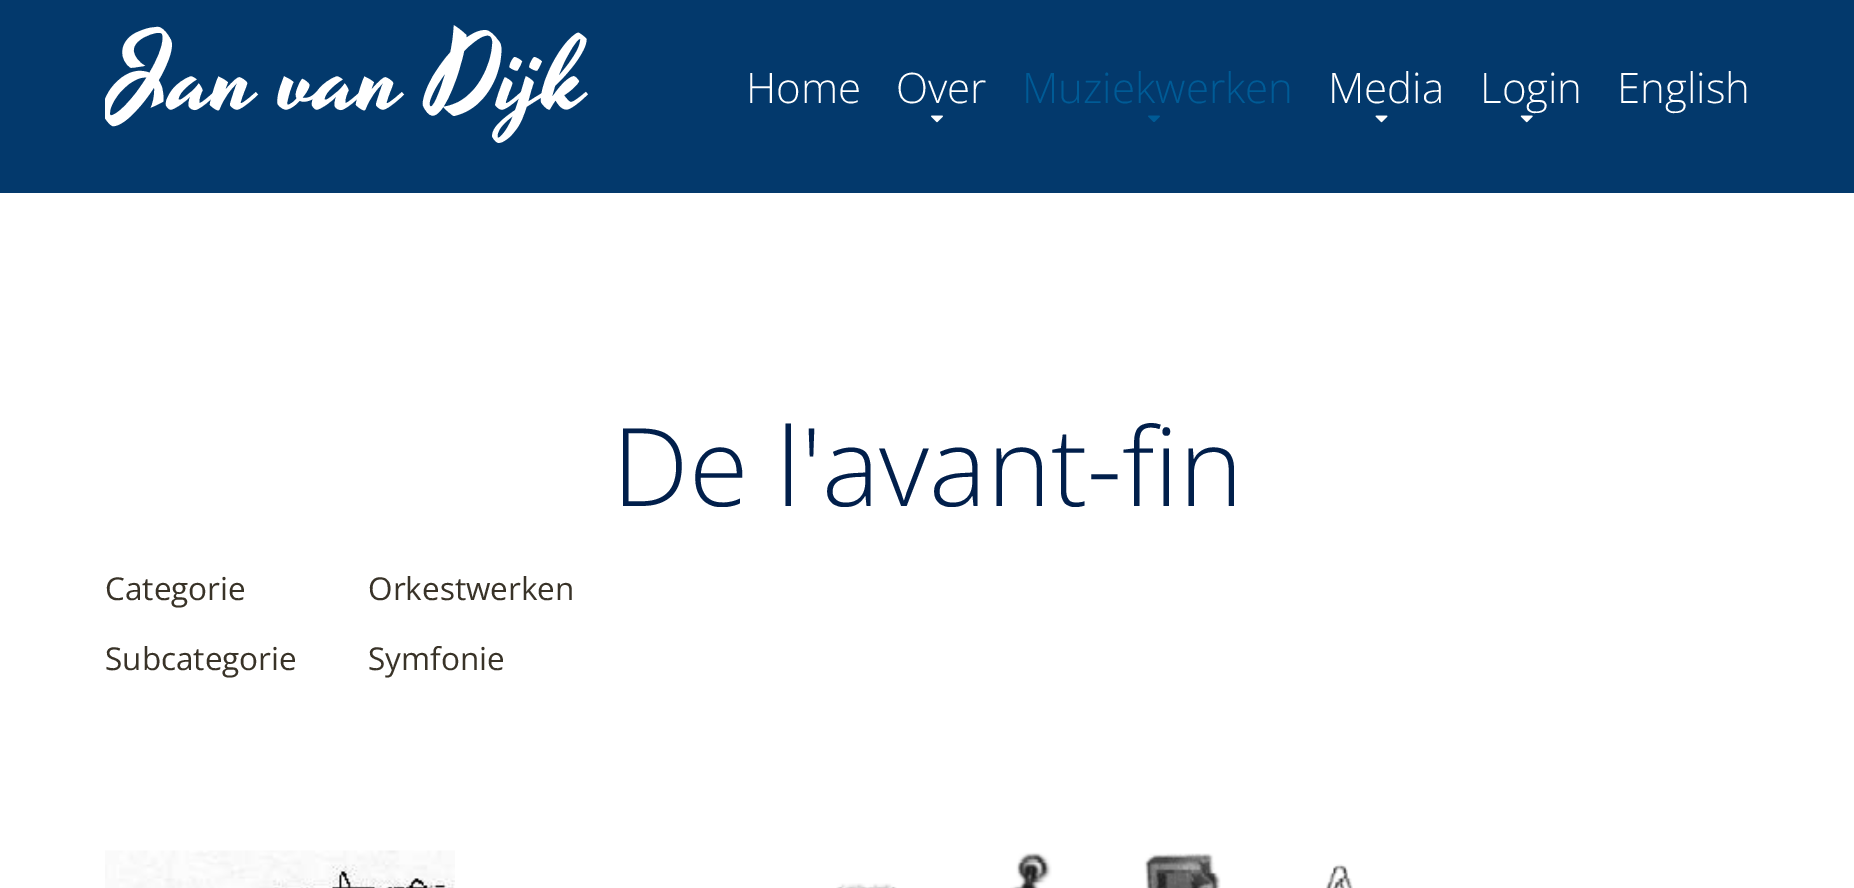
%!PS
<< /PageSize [1854 888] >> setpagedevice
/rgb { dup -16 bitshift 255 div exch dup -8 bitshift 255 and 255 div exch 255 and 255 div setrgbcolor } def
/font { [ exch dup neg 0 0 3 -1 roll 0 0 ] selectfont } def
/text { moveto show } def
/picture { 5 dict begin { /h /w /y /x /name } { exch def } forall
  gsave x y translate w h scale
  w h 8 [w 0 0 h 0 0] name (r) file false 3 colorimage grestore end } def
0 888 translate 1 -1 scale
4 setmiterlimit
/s1 { /Yesteryear-Regular 105 font 16#FFFFFF rgb } def
/s2 { /OpenSans-Light 42 font 16#FFFFFF rgb } def
/s3 { /OpenSans-Light 42 font 16#005B96 rgb } def
/s4 { /OpenSans-Light 108.5 font 16#011F4B rgb } def
/s5 { /OpenSans-Regular 31.5 font 16#393328 rgb } def
16#03396C rgb
0 0 1854 888 rectfill
gsave
105 25 483 122 rectclip
s1
(Jan van Dijk) 112 107 text
grestore
s2
(Home) 746 103 text
(Over) 896 103 text
(pic1.raw) 931 115 12 8 picture
s3
(Muziekwerken) 1022 103 text
(pic2.raw) 1148 115 12 7 picture
s2
(Media) 1328 103 text
(pic3.raw) 1375 115 13 8 picture
(Login) 1480 103 text
(pic4.raw) 1520 115 13 8 picture
(English) 1617 103 text
0 193 1854 695 rectfill
s4
(De l'avant-fin) 612 506 text
s5
(Categorie) 105 600 text
(Orkestwerken) 368 600 text
(Subcategorie) 105 670 text
(Symfonie) 368 670 text
(pic5.raw) 105 850 350 38 picture
(pic6.raw) 836 883 61 5 picture
(pic7.raw) 1010 852 42 36 picture
(pic8.raw) 1144 853 77 35 picture
(pic9.raw) 1326 864 27 24 picture
showpage
